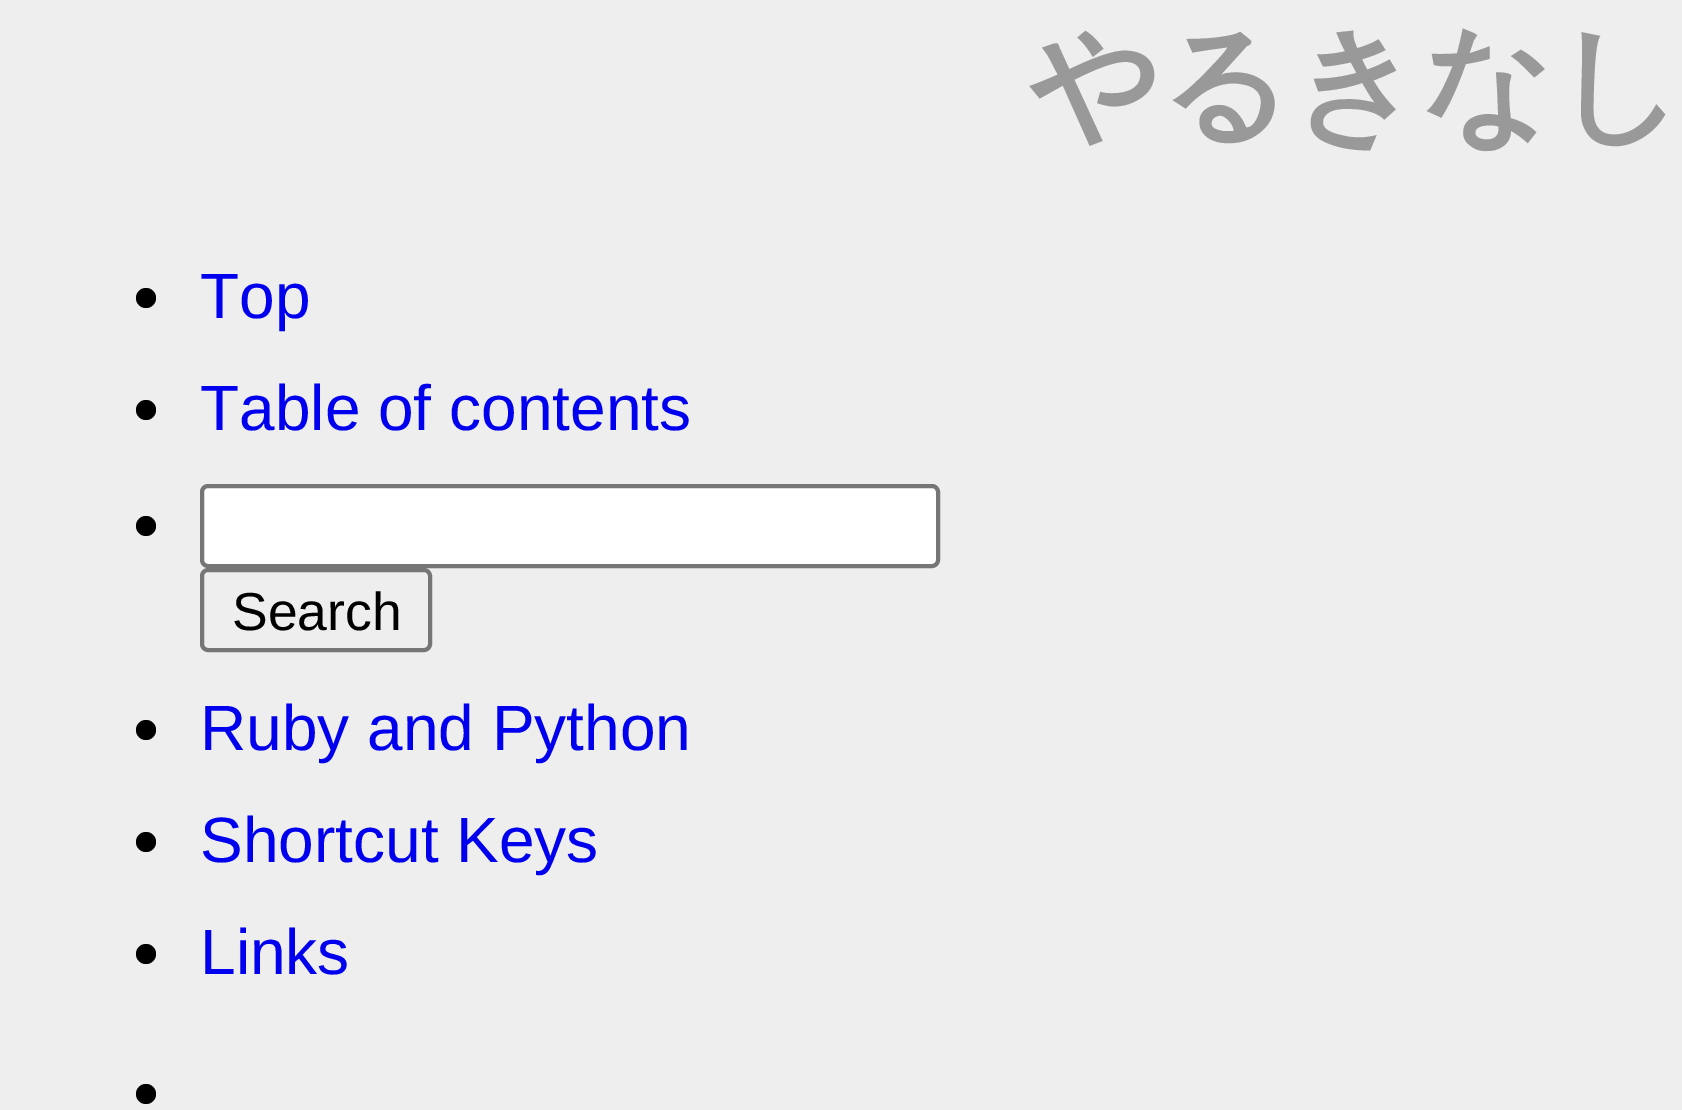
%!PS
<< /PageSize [1682 1110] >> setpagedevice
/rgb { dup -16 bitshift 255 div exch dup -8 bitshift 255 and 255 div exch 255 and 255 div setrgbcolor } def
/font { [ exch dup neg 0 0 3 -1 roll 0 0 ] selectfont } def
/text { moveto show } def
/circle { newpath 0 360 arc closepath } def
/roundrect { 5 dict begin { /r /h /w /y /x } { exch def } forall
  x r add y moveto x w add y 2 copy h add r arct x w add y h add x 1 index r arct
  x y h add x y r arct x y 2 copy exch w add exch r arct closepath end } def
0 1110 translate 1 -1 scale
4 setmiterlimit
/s1 { /WenQuanYiZenHei-Bold 128 font 16#999999 rgb } def
/s2 { /LiberationSans-Regular 64 font 16#0000EE rgb } def
/s3 { /LiberationSans-Regular 53.5 font 16#000000 rgb } def
16#EEEEEE rgb
0 0 1682 1110 rectfill
s1
(やるきなし) 1029 128 text
16#000000 rgb
146 298 10 circle fill
s2
(Top) 200 318 text
16#000000 rgb
146 410 10 circle fill
s2
(Table of contents) 200 430 text
16#000000 rgb
146 526 10 circle fill
16#FFFFFF rgb
202 486 736 80 6 roundrect gsave fill grestore
16#767676 rgb
4 setlinewidth
stroke
202 570 228 80 6 roundrect stroke
s3
(Search) 232 630 text
146 730 10 circle fill
s2
(Ruby and Python) 200 750 text
16#000000 rgb
146 842 10 circle fill
s2
(Shortcut Keys) 200 862 text
16#000000 rgb
146 954 10 circle fill
s2
(Links) 200 974 text
16#000000 rgb
146 1094 10 circle fill
showpage
